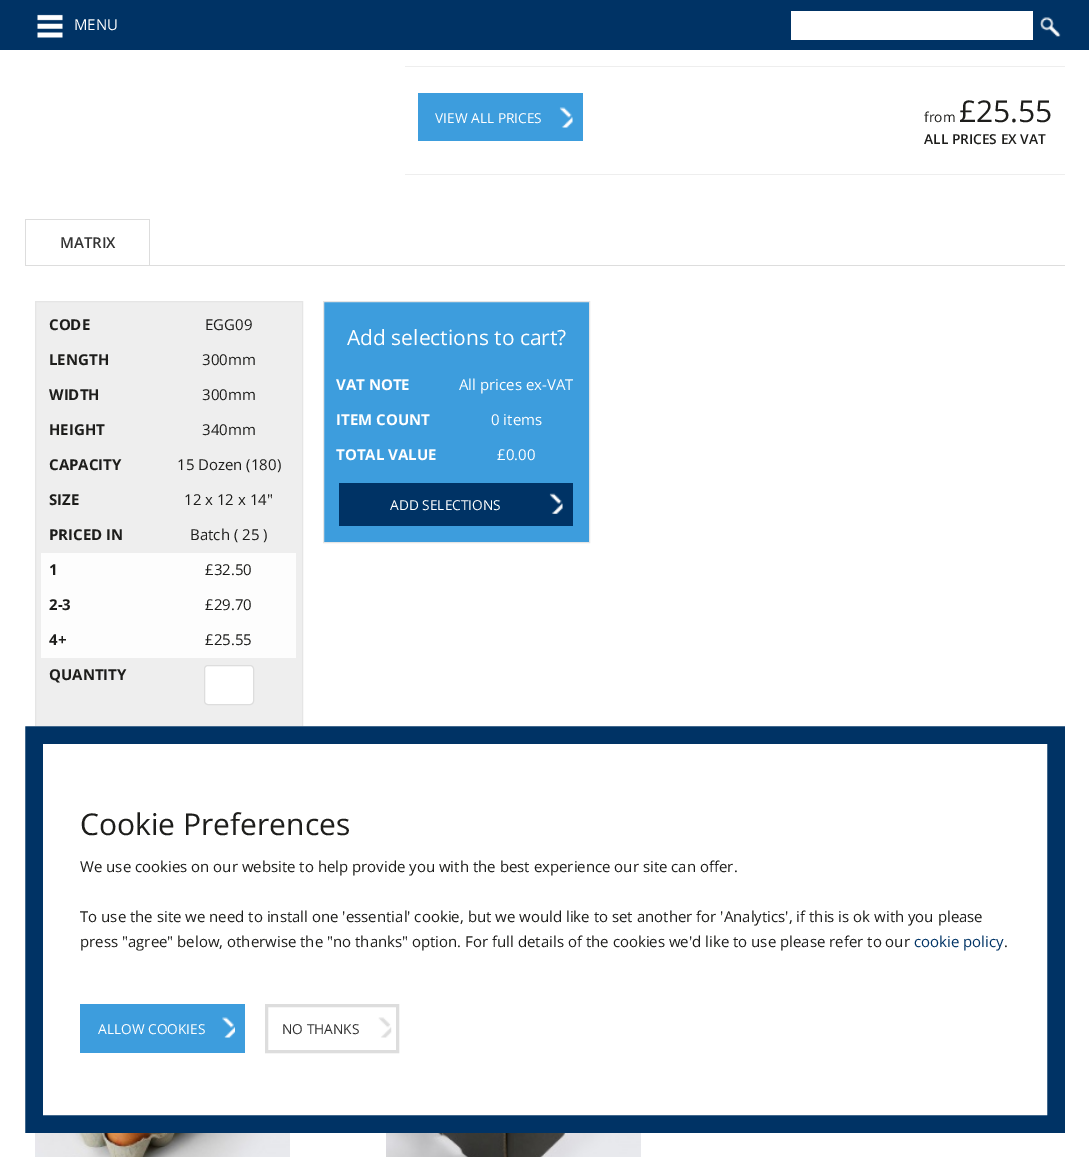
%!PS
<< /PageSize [1089 1157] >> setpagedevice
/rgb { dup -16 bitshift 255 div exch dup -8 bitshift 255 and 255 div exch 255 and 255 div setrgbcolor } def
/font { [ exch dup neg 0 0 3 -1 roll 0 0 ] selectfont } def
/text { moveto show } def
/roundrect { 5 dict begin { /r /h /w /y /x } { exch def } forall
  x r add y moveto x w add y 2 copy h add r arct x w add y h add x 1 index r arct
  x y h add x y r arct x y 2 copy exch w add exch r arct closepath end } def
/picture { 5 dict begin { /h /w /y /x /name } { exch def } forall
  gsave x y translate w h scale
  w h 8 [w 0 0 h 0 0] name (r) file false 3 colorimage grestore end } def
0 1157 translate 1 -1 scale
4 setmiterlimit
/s1 { /OpenSans-Regular 15 font 16#FFFFFF rgb } def
/s2 { /OpenSans-Regular 13.75 font 16#FFFFFF rgb } def
/s3 { /OpenSans-Regular 13.75 font 16#1D1D1B rgb } def
/s4 { /OpenSans-Regular 30 font 16#1D1D1B rgb } def
/s5 { /OpenSans-SemiBold 13.75 font 16#1D1D1B rgb } def
/s6 { /OpenSans-SemiBold 15 font 16#333333 rgb } def
/s7 { /OpenSans-Bold 15 font 16#1D1D1B rgb } def
/s8 { /OpenSans-Regular 15 font 16#1D1D1B rgb } def
/s9 { /OpenSans-Regular 21 font 16#FFFFFF rgb } def
/s10 { /OpenSans-Bold 15 font 16#FFFFFF rgb } def
/s11 { /OpenSans-Regular 15 font 16#003365 rgb } def
/s12 { /OpenSans-Regular 13.75 font 16#333333 rgb } def
16#FFFFFF rgb
0 0 1089 1157 rectfill
16#003365 rgb
0 0 1089 50 rectfill
(pic1.raw) 37 14 26 24 picture
s1
(MENU) 74 30 text
791 11 242 29 rectfill
(pic2.raw) 1040 17 21 20 picture
16#EEEEEE rgb
405 66 660 1 rectfill
405 174 660 1 rectfill
16#3D9DDD rgb
418 93 165 48 rectfill
(pic3.raw) 559 107 14 21 picture
s2
(VIEW ALL PRICES) 435 123 text
s3
(from) 924 122 text
s4
(£25.55) 959 122 text
s5
(ALL PRICES EX VAT) 924 144 text
16#DDDDDD rgb
25 219 125 1 rectfill
149 219 1 47 rectfill
25 219 1 47 rectfill
s6
(MATRIX) 60 248 text
16#DDDDDD rgb
25 265 1040 1 rectfill
16#EEEEEE rgb
36 302 266 424 rectfill
16#E5E5E5 rgb
35.5 301.5 267 452 rectstroke
s7
(CODE) 49 330 text
s8
(EGG09) 205 330 text
s7
(LENGTH) 49 365 text
s8
(300mm) 202 365 text
s7
(WIDTH) 49 400 text
s8
(300mm) 202 400 text
s7
(HEIGHT) 49 435 text
s8
(340mm) 202 435 text
s7
(CAPACITY) 49 470 text
s8
(15 Dozen \(180\)) 177 470 text
s7
(SIZE) 49 505 text
s8
(12 x 12 x 14") 184 505 text
s7
(PRICED IN) 49 540 text
s8
(Batch \( 25 \)) 190 540 text
16#FDFDFD rgb
41 553 255 105 rectfill
s7
(1) 49 575 text
s8
(£32.50) 205 575 text
s7
(2-3) 49 610 text
s8
(£29.70) 205 610 text
s7
(4+) 49 645 text
s8
(£25.55) 205 645 text
s7
(QUANTITY) 49 680 text
16#FFFFFF rgb
204.5 665.5 49 39 3.5 roundrect gsave fill grestore
16#DDDDDD rgb
stroke
16#3D9DDD rgb
323.5 301.5 moveto 589.5 301.5 lineto 589.5 542.5 lineto 323.5 542.5 lineto closepath gsave fill grestore
16#E5E5E5 rgb
stroke
s9
(Add selections to cart?) 347 345 text
s10
(VAT NOTE) 336 390 text
s1
(All prices ex-VAT) 459 390 text
s10
(ITEM COUNT) 336 425 text
s1
(0 items) 491 425 text
s10
(TOTAL VALUE) 336 460 text
s1
(£0.00) 497 460 text
16#003365 rgb
339 483 234 43 rectfill
(pic4.raw) 549 493 14 21 picture
s2
(ADD SELECTIONS) 390 510 text
(pic5.raw) 35 1133 255 24 picture
(pic6.raw) 386 1133 255 24 picture
25 726 1040 407 5 roundrect fill
16#003365 rgb
17.5 setlinewidth
34 735 moveto 1056 735 lineto 1056 1124 lineto 34 1124 lineto closepath stroke
s4
(Cookie Preferences) 80 835 text
s8
(We use cookies on our website to help provide you with the best experience our site can offer.) 80 872 text
(To use the site we need to install one 'essential' cookie, but we would like to set another for 'Analytics', if this is ok with you please) 80 922 text
(press "agree" below, otherwise the "no thanks" option. For full details of the cookies we'd like to use please refer to our) 80 947 text
s11
(cookie policy) 914 947 text
s8
(.) 1004 947 text
16#3D9DDD rgb
80 1004 165 49 rectfill
(pic7.raw) 222 1017 13 21 picture
s2
(ALLOW COOKIES) 98 1034 text
(pic8.raw) 378 1017 14 21 picture
16#DDDDDD rgb
3 setlinewidth
266.5 1005.5 131 46 rectstroke
s12
(NO THANKS) 282 1034 text
showpage
